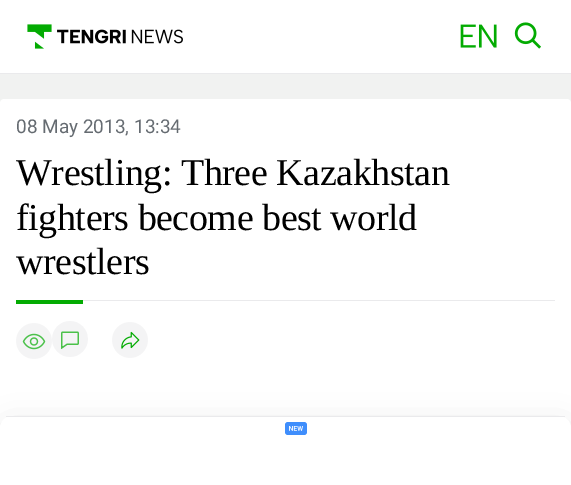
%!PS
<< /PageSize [571 485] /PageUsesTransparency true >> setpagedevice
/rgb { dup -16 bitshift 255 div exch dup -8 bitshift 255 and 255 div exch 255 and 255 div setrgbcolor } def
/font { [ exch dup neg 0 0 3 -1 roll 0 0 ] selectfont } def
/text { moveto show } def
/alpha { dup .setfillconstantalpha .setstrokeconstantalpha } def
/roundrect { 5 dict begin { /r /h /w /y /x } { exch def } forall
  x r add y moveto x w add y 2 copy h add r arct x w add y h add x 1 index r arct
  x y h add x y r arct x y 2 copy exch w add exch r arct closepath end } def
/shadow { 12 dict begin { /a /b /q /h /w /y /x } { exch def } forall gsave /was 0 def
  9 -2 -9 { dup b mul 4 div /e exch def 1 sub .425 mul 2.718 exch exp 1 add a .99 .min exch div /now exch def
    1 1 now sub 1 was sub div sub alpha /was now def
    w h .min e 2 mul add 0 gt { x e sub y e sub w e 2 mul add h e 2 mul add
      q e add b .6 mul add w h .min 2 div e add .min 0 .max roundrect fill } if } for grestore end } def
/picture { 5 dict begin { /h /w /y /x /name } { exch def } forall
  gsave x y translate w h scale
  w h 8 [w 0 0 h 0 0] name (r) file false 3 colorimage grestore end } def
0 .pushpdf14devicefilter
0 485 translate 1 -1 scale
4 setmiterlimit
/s1 { /Roboto-Regular 19 font 16#656B71 rgb } def
16#F1F2F1 rgb
0 0 571 485 rectfill
16#FFFFFF rgb
0 0 571 73 rectfill
16#EAEAEC rgb
0 73 571 1 rectfill
(pic1.raw) 27 24 156 25 picture
(pic2.raw) 460 24 37 24 picture
(pic3.raw) 514 22 27 27 picture
16#FFFFFF rgb
4 99 moveto 567 99 lineto 569 99 571 101 571 103 curveto 571 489 lineto 0 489 lineto 0 103 lineto 0 101 2 99 4 99 curveto closepath fill
s1
(08 May 2013, 13:34) 16 133 text
16#EAEAEC rgb
83 300 472 1 rectfill
/LiberationSerif-Regular 38 font
16#000000 rgb
16 185 moveto -0.45 0 (Wrestling: Three Kazakhstan) ashow
16 230 moveto -0.45 0 (fighters become best world) ashow
16 274 moveto -0.45 0 (wrestlers) ashow
16#03AB02 rgb
16 300 67 4 rectfill
(pic4.raw) 16 323 36 36 picture
(pic5.raw) 52 321 36 36 picture
(pic6.raw) 112 322 36 36 picture
16#000000 rgb
1 426 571 59 12 15 0.12 shadow
16#FFFFFF rgb
12 416 moveto 559 416 lineto 565.5 416 571 421.5 571 428 curveto 571 485 lineto 0 485 lineto 0 428 lineto 0 421.5 5.5 416 12 416 curveto closepath fill
16#EAEAEC rgb
6 416 559 1 rectfill
16#3F8EFC rgb
285 422 22 13 3 roundrect fill
(pic7.raw) 289 426 14 5 picture
.poppdf14devicefilter showpage
